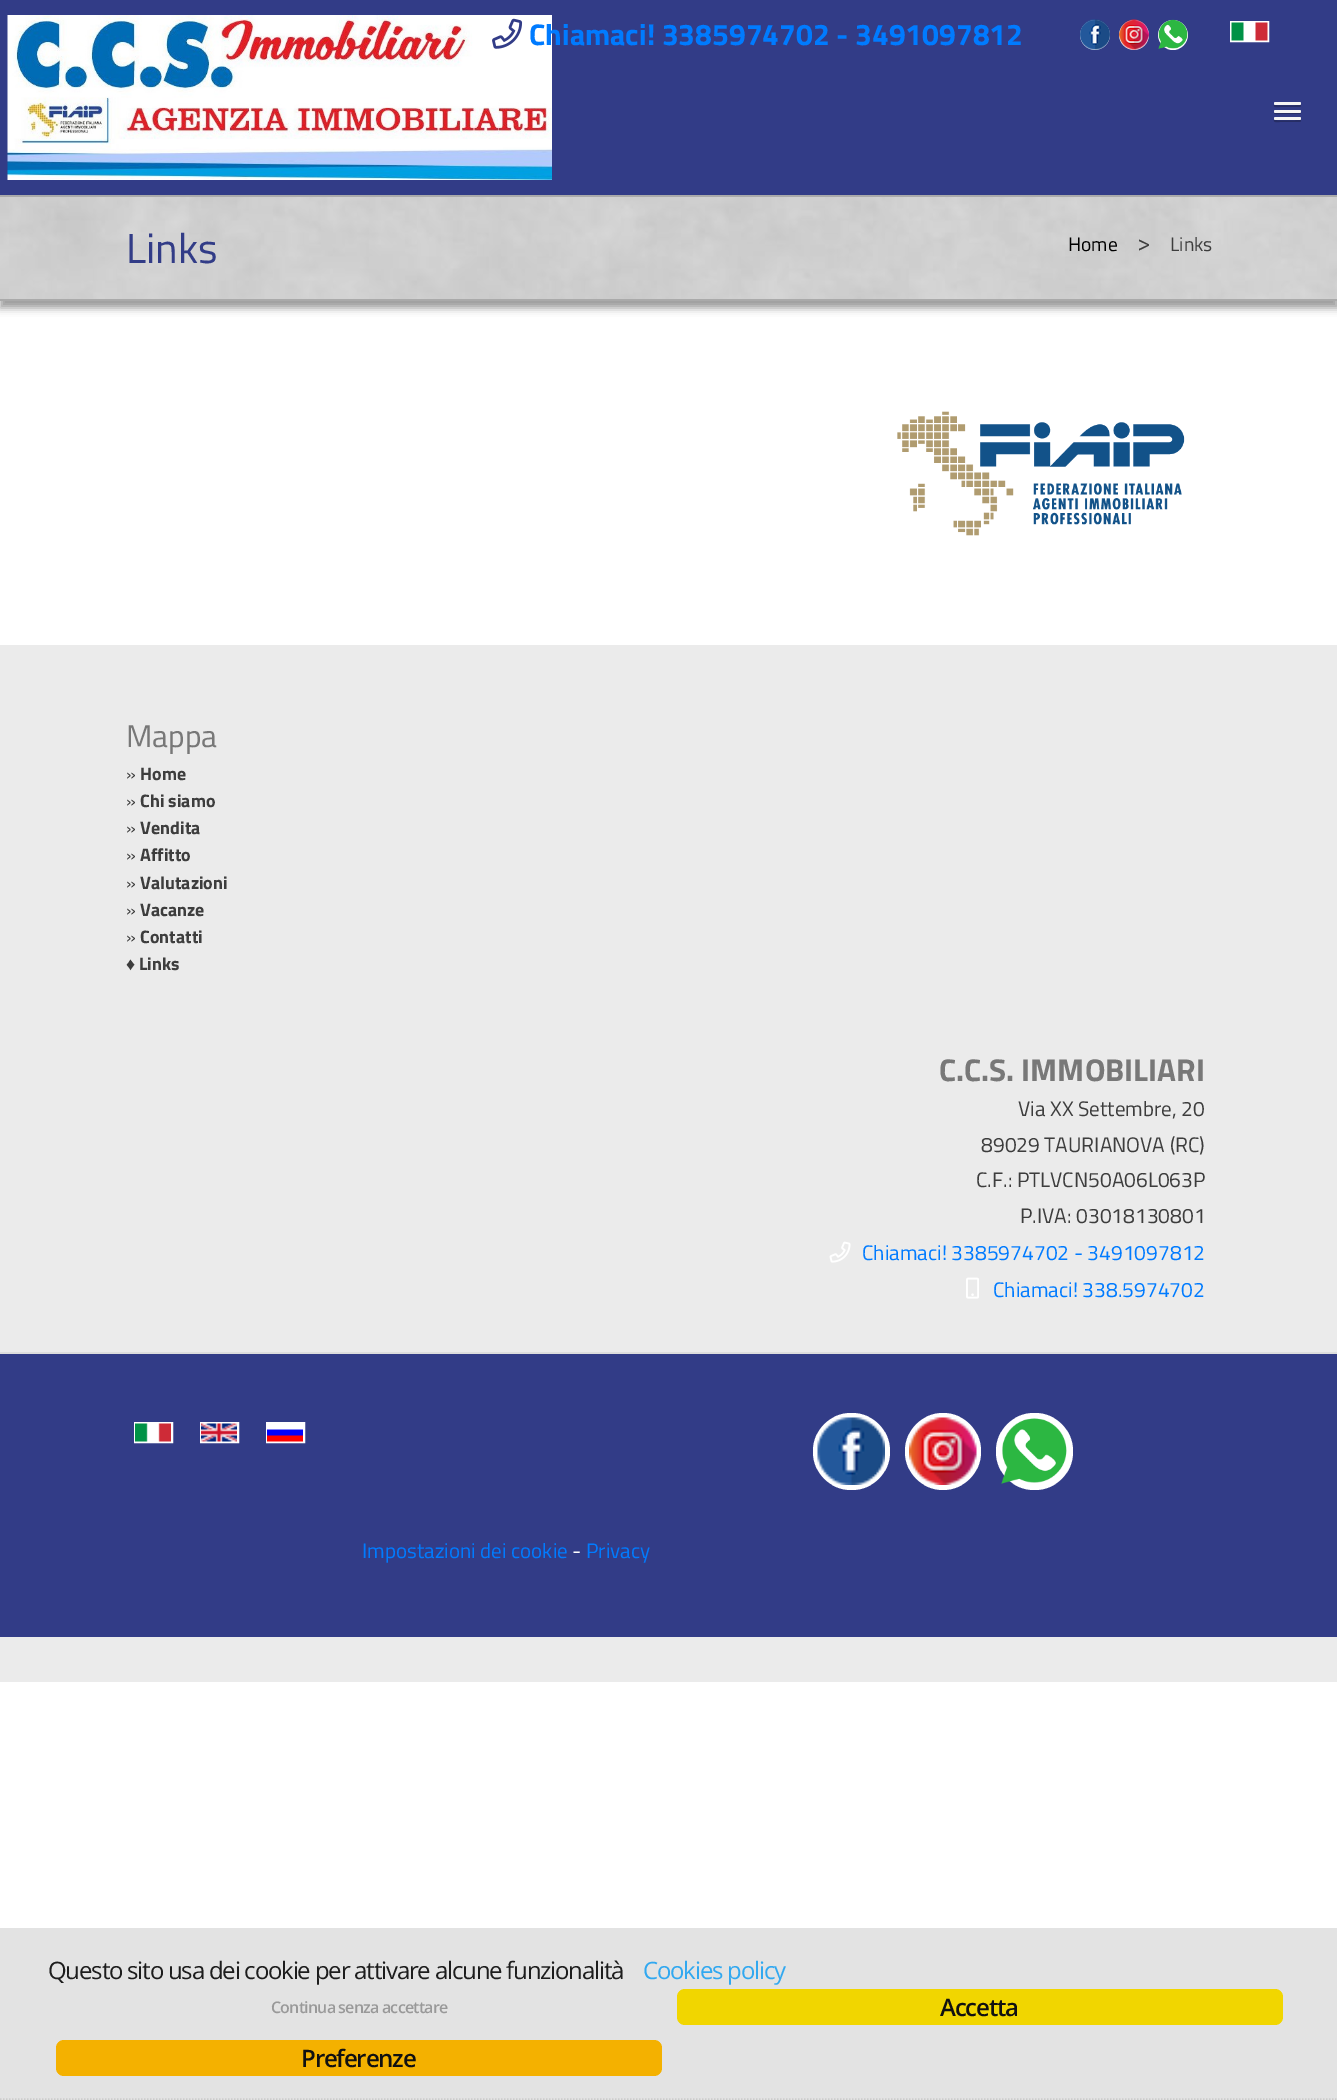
%!PS
<< /PageSize [1337 2100] /PageUsesTransparency true >> setpagedevice
/rgb { dup -16 bitshift 255 div exch dup -8 bitshift 255 and 255 div exch 255 and 255 div setrgbcolor } def
/font { [ exch dup neg 0 0 3 -1 roll 0 0 ] selectfont } def
/text { moveto show } def
/alpha { dup .setfillconstantalpha .setstrokeconstantalpha } def
/circle { newpath 0 360 arc closepath } def
/roundrect { 5 dict begin { /r /h /w /y /x } { exch def } forall
  x r add y moveto x w add y 2 copy h add r arct x w add y h add x 1 index r arct
  x y h add x y r arct x y 2 copy exch w add exch r arct closepath end } def
/shadow { 12 dict begin { /a /b /q /h /w /y /x } { exch def } forall gsave /was 0 def
  9 -2 -9 { dup b mul 4 div /e exch def 1 sub .425 mul 2.718 exch exp 1 add a .99 .min exch div /now exch def
    1 1 now sub 1 was sub div sub alpha /was now def
    w h .min e 2 mul add 0 gt { x e sub y e sub w e 2 mul add h e 2 mul add
      q e add b .6 mul add w h .min 2 div e add .min 0 .max roundrect fill } if } for grestore end } def
/picture { 5 dict begin { /h /w /y /x /name } { exch def } forall
  gsave x y translate w h scale
  w h 8 [w 0 0 h 0 0] name (r) file false 3 colorimage grestore end } def
0 .pushpdf14devicefilter
0 2100 translate 1 -1 scale
4 setmiterlimit
/s1 { /TitilliumWeb-Bold 30 font 16#007BFF rgb } def
/s2 { /TitilliumWeb-Regular 42 font 16#323C87 rgb } def
/s3 { /TitilliumWeb-Regular 19.5 font 16#000000 rgb } def
/s4 { /TitilliumWeb-Regular 24 font 16#3D3D3D rgb } def
/s5 { /TitilliumWeb-Regular 19.5 font 16#3D3D3D rgb } def
/s6 { /TitilliumWeb-Regular 31.5 font 16#787878 rgb } def
/s7 { /TitilliumWeb-Regular 18 font 16#3D3D3D rgb } def
/s8 { /TitilliumWeb-Bold 18 font 16#3D3D3D rgb } def
/s9 { /LiberationSans-Regular 18 font 16#3D3D3D rgb } def
/s10 { /TitilliumWeb-Bold 31.5 font 16#787878 rgb } def
/s11 { /TitilliumWeb-Regular 21 font 16#3D3D3D rgb } def
/s12 { /TitilliumWeb-Regular 21 font 16#007BFF rgb } def
/s13 { /TitilliumWeb-Regular 21 font 16#FFFFFF rgb } def
16#FFFFFF rgb
0 0 1337 2100 rectfill
16#999999 rgb
0 203 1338 105 0 4 1 shadow
16#323C87 rgb
0 0 1337 195 rectfill
(pic1.raw) 7 15 545 165 picture
(pic2.raw) 492 18 31 31 picture
s1
(Chiamaci! 3385974702 - 3491097812) 529 45 text
16#FFFFFF rgb
1095 35 15 circle fill
(pic3.raw) 1080 19 30 31 picture
1134 35 15 circle fill
(pic4.raw) 1119 19 30 31 picture
1173 35 15 circle fill
(pic5.raw) 1158 19 30 30 picture
2 setlinewidth
1231 22 37 19 rectstroke
(pic6.raw) 1231 22 37 19 picture
16#262D65 rgb
1274 105 moveto 1272.5 108 1279.5 107 1279.5 107 curveto 1300 107 lineto 1301 106.5 1301.5 105 1300.5 104 curveto 1299 105 lineto 1297 105.5 1275 105.5 1274 105 curveto closepath fill
16#F5F5F5 rgb
1274 102 27 3 1.5 roundrect fill
16#262D65 rgb
1274 112 moveto 1273.5 115 1279 114 1279.5 114 curveto 1299.5 114 lineto 1301 114 1301.5 112 1300.5 111.5 curveto 1299.5 112.5 lineto 1298 113 1274.5 112.5 1274 112 curveto closepath fill
16#F5F5F5 rgb
1274 110 27 3 1.5 roundrect fill
16#262D65 rgb
1274 120 moveto 1272.5 123 1279.5 122 1279.5 122 curveto 1300 122 lineto 1301 121.5 1301.5 120 1300.5 119 curveto 1299 120 lineto 1297 120.5 1275 120.5 1274 120 curveto closepath fill
16#F5F5F5 rgb
1274 117 27 3 1.5 roundrect fill
(pic7.raw) 0 197 1337 102 picture
16#AAAAAA rgb
0 195 1337 2 rectfill
0 299 1337 2 rectfill
s2
(Links) 126 263 text
s3
(Home) 1068 251 text
s4
(>) 1137 251 text
s5
(Links) 1170 251 text
(pic8.raw) 897 411 288 125 picture
16#EBEBEB rgb
0 645 1337 1037 rectfill
s6
(Mappa) 126 747 text
s7
(») 126 780 text
s8
(Home) 140 780 text
s7
(») 126 807 text
s8
(Chi siamo) 140 807 text
s7
(») 126 834 text
s8
(Vendita) 140 834 text
s7
(») 126 861 text
s8
(Affitto) 140 861 text
s7
(») 126 889 text
s8
(Valutazioni) 140 889 text
s7
(») 126 916 text
s8
(Vacanze) 140 916 text
s7
(») 126 943 text
s8
(Contatti) 140 943 text
s9
(♦) 126 970 text
s8
(Links) 139 970 text
s10
(C.C.S. IMMOBILIARI) 939 1081 text
s11
(Via XX Settembre, 20) 1018 1116 text
(89029 TAURIANOVA \(RC\)) 981 1152 text
(C.F.: PTLVCN50A06L063P) 976 1187 text
(P.IVA: 03018130801) 1020 1223 text
(pic9.raw) 829 1241 22 22 picture
s12
(Chiamaci! 3385974702 - 3491097812) 862 1260 text
(pic10.raw) 966 1277 13 22 picture
(Chiamaci! 338.5974702) 993 1297 text
16#323C87 rgb
0 1354 1337 283 rectfill
16#DDDDDD rgb
0 1352 1337 2 rectfill
16#FFFFFF rgb
135 1423 37 19 rectstroke
(pic11.raw) 135 1423 36 19 picture
201 1423 37 19 rectstroke
(pic12.raw) 201 1423 36 19 picture
267 1423 37 19 rectstroke
(pic13.raw) 267 1424 36 18 picture
813 1413 77 77 38 roundrect fill
(pic14.raw) 817 1417 68 68 picture
905 1413 76 77 38 roundrect fill
(pic15.raw) 909 1417 68 68 picture
996 1413 77 77 38 roundrect fill
(pic16.raw) 1001 1418 66 66 picture
s12
(Impostazioni dei cookie) 362 1558 text
s13
(-) 572 1558 text
s12
(Privacy) 586 1558 text
16#E3E3E3 rgb
0 1928 1337 172 rectfill
16#CCCCCC rgb
1.5 setlinewidth
[1.5 1.5] 0 setdash
0 2099 moveto 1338 2099 lineto stroke
/OpenSans-Regular 24 font
16#1D1D1D rgb
48 1979 moveto -1.2 0 (Questo sito usa dei cookie per attivare alcune funzionalità) ashow
16#31A8F0 rgb
643 1979 moveto -1.2 0 (Cookies policy) ashow
/OpenSans-SemiBold 16 font
16#999999 rgb
271 2013 moveto -0.8 0 (Continua senza accettare) ashow
16#F1D600 rgb
677 1989 606 36 8 roundrect fill
/OpenSans-SemiBold 24 font
16#111111 rgb
940 2016 moveto -1.2 0 (Accetta) ashow
16#F4B100 rgb
56 2040 606 36 8 roundrect fill
16#111111 rgb
301 2067 moveto -1.2 0 (Preferenze) ashow
.poppdf14devicefilter showpage
